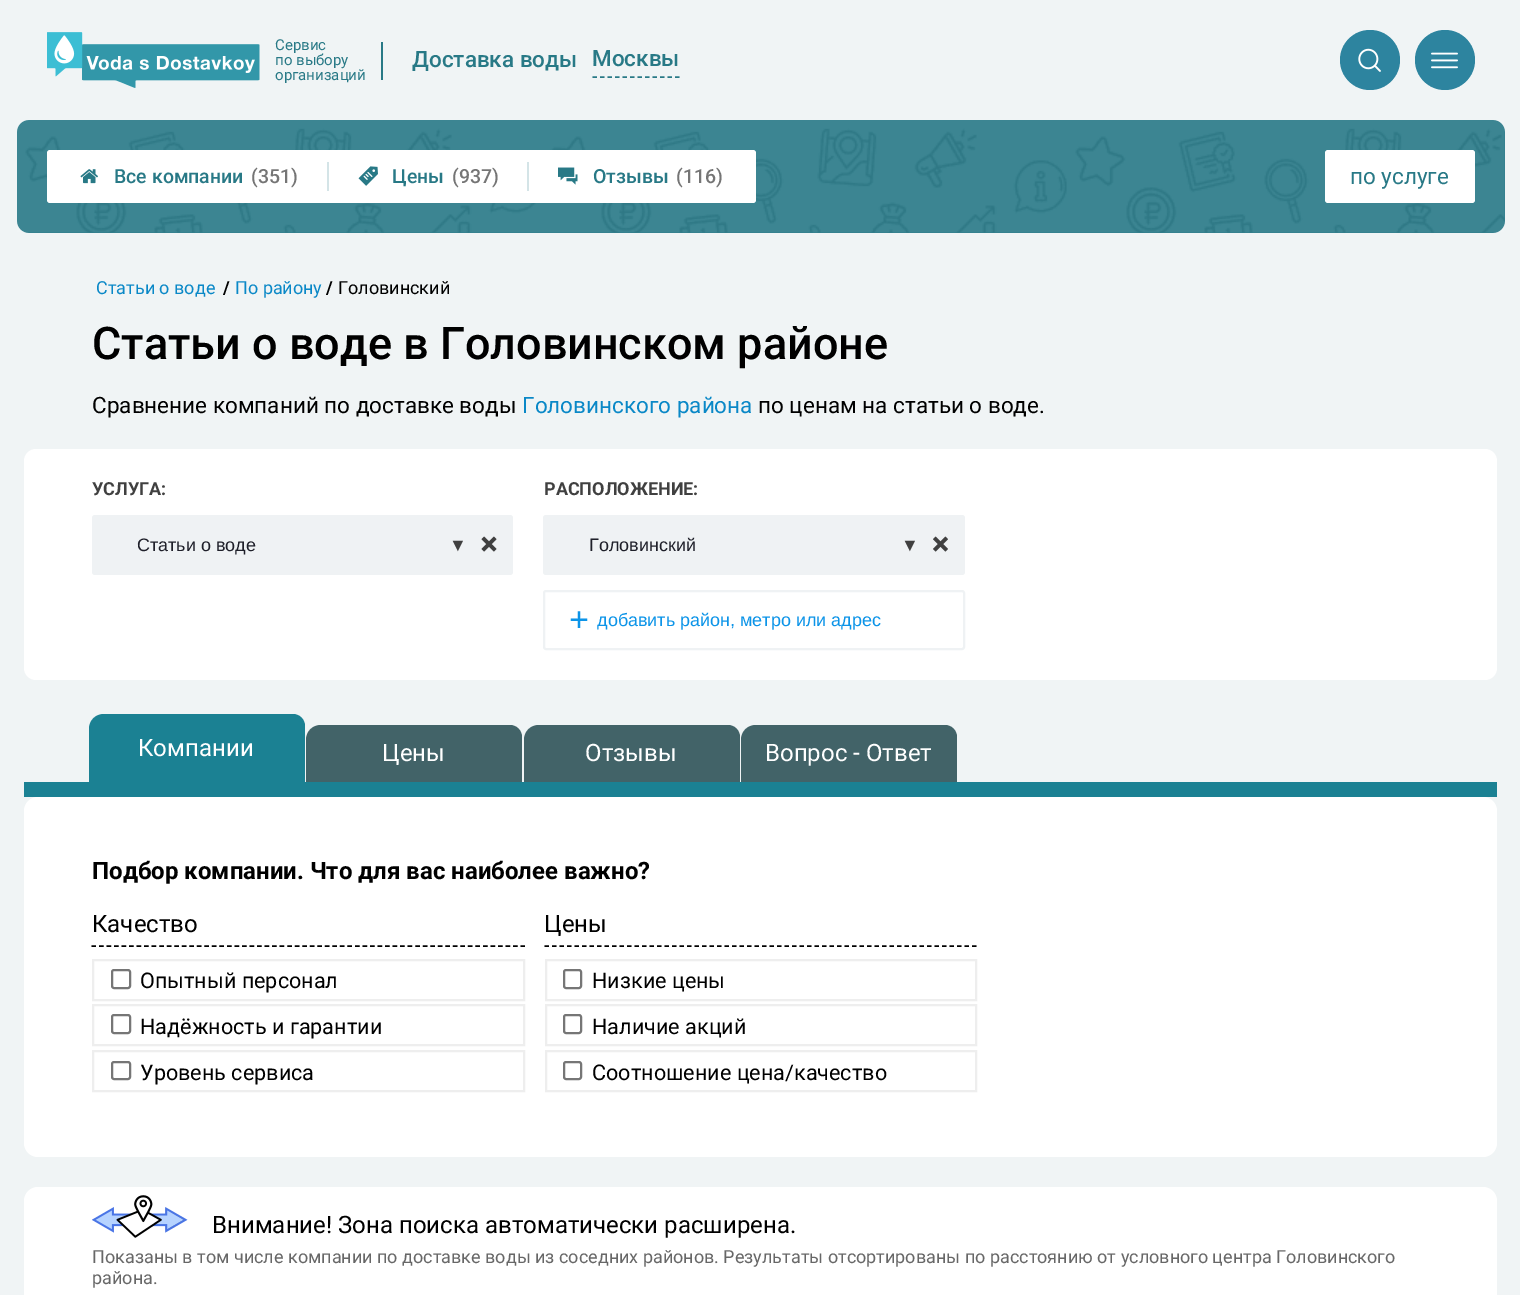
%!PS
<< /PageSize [1520 1295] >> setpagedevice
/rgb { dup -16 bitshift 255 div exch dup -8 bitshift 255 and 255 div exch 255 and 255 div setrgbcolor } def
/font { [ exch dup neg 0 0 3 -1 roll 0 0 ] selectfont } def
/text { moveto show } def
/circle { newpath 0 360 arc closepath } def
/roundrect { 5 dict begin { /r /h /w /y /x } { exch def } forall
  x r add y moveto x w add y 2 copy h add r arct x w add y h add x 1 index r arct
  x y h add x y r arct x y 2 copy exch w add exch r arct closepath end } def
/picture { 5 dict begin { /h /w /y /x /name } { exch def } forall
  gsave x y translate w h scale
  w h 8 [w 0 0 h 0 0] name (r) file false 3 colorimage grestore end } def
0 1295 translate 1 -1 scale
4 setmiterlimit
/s1 { /Roboto-Regular 15 font 16#287986 rgb } def
/s2 { /Roboto-Medium 22.5 font 16#287986 rgb } def
/s3 { /Roboto-Medium 19.5 font 16#287986 rgb } def
/s4 { /Roboto-Medium 19.5 font 16#757575 rgb } def
/s5 { /Roboto-Regular 22.5 font 16#287986 rgb } def
/s6 { /Roboto-Regular 18 font 16#0A88C7 rgb } def
/s7 { /Roboto-Bold 18 font 16#000000 rgb } def
/s8 { /Roboto-Regular 18 font 16#000000 rgb } def
/s9 { /Roboto-Medium 45 font 16#000000 rgb } def
/s10 { /Roboto-Regular 22.5 font 16#000000 rgb } def
/s11 { /Roboto-Regular 22.5 font 16#0A88C7 rgb } def
/s12 { /Roboto-Bold 18 font 16#404040 rgb } def
/s13 { /LiberationSans-Regular 18 font 16#1F202A rgb } def
/s14 { /LiberationSans-Regular 18 font 16#404040 rgb } def
/s15 { /LiberationSans-Regular 34 font 16#0C94E8 rgb } def
/s16 { /LiberationSans-Regular 18 font 16#0C94E8 rgb } def
/s17 { /Roboto-Regular 24 font 16#FFFFFF rgb } def
/s18 { /Roboto-Bold 24 font 16#000000 rgb } def
/s19 { /Roboto-Regular 24 font 16#000000 rgb } def
/s20 { /Roboto-Regular 21.6 font 16#000000 rgb } def
/s21 { /Roboto-Regular 18 font 16#676767 rgb } def
16#F0F4F5 rgb
0 0 1520 1295 rectfill
(pic1.raw) 47 32 213 56 picture
s1
(Сервис) 275 50 text
(по выбору) 275 65 text
(организаций) 275 80 text
381 42 2 38 rectfill
s2
(Доставка воды) 412 67 text
1.5 setlinewidth
[4.5 3] 0 setdash
592.5 77 moveto 679.5 77 lineto stroke
(Москвы) 592 66 text
16#2D849F rgb
1370 60 30 circle fill
(pic2.raw) 1358 48 23 24 picture
1445 60 30 circle fill
(pic3.raw) 1431 52 27 17 picture
16#317E8C rgb
17 120 1488 113 12 roundrect fill
(pic4.raw) 17 120 1488 113 picture
16#FFFFFF rgb
47 150 709 53 3 roundrect fill
(pic5.raw) 80 169 18 15 picture
s3
(Все компании) 114 183 text
s4
(\(351\)) 251 183 text
16#D4E4E7 rgb
327 162 2 29 rectfill
(pic6.raw) 358 166 20 20 picture
s3
(Цены) 392 183 text
s4
(\(937\)) 452 183 text
16#D4E4E7 rgb
527 162 2 29 rectfill
(pic7.raw) 558 167 20 18 picture
s3
(Отзывы) 593 183 text
s4
(\(116\)) 676 183 text
16#FFFFFF rgb
1325 150 150 53 3 roundrect fill
s5
(по услуге) 1350 184 text
s6
(Статьи о воде) 96 294 text
s7
(/) 223 294 text
s6
(По району) 235 294 text
s7
(/) 326 294 text
s8
(Головинский) 338 294 text
s9
(Статьи о воде в Головинском районе) 92 359 text
s10
(Сравнение компаний по доставке воды) 92 413 text
s11
(Головинского района) 522 413 text
s10
(по ценам на статьи о воде.) 758 413 text
16#FFFFFF rgb
24 449 1473 231 12 roundrect fill
s12
(УСЛУГА:) 92 495 text
16#EFF2F4 rgb
92 515 421 60 3 roundrect fill
s13
(Статьи о воде) 137 551 text
s14
(▼) 449 551 text
(pic8.raw) 481 536 16 16 picture
s12
(РАСПОЛОЖЕНИЕ:) 544 495 text
16#EFF2F4 rgb
543 515 422 60 3 roundrect fill
s13
(Головинский) 589 551 text
s14
(▼) 901 551 text
(pic9.raw) 933 536 15 16 picture
16#EFF2F4 rgb
2 setlinewidth
[] 0 setdash
544 591 420 58 2 roundrect stroke
s15
(+) 569 631 text
s16
(добавить район, метро или адрес) 597 626 text
16#1B8193 rgb
104 714 moveto 293 714 lineto 299.5 714 305 719.5 305 726 curveto 305 782 lineto 89 782 lineto 89 729 lineto 89 720.5 95.5 714 104 714 curveto closepath fill
s17
(Компании) 138 756 text
16#426368 rgb
321 725 moveto 510 725 lineto 516.5 725 522 730.5 522 737 curveto 522 782 lineto 306 782 lineto 306 740 lineto 306 731.5 312.5 725 321 725 curveto closepath fill
s17
(Цены) 382 761 text
16#426368 rgb
539 725 moveto 728 725 lineto 734.5 725 740 730.5 740 737 curveto 740 782 lineto 524 782 lineto 524 740 lineto 524 731.5 530.5 725 539 725 curveto closepath fill
s17
(Отзывы) 585 761 text
16#426368 rgb
756 725 moveto 945 725 lineto 951.5 725 957 730.5 957 737 curveto 957 782 lineto 741 782 lineto 741 740 lineto 741 731.5 747.5 725 756 725 curveto closepath fill
s17
(Вопрос - Ответ) 765 761 text
16#1B8193 rgb
24 782 1473 15 rectfill
16#FFFFFF rgb
24 797 1473 360 14 roundrect fill
s18
(Подбор компании. Что для вас наиболее важно?) 92 879 text
1.5 setlinewidth
[4.5 3.03] 0 setdash
91.5 946 moveto 525 946 lineto stroke
s19
(Качество) 92 932 text
16#EEEEEE rgb
2 setlinewidth
[] 0 setdash
93 960 431 40 rectstroke
16#767676 rgb
112 970 18 18 2 roundrect stroke
s20
(Опытный персонал) 140 988 text
16#EEEEEE rgb
93 1005 431 40 rectstroke
16#767676 rgb
112 1015 18 18 2 roundrect stroke
s20
(Надёжность и гарантии) 140 1034 text
16#EEEEEE rgb
93 1051 431 40 rectstroke
16#767676 rgb
112 1062 18 17 2 roundrect stroke
s20
(Уровень сервиса) 140 1080 text
1.5 setlinewidth
[4.5 3] 0 setdash
544.5 946 moveto 976.5 946 lineto stroke
s19
(Цены) 544 932 text
16#EEEEEE rgb
2 setlinewidth
[] 0 setdash
546 960 430 40 rectstroke
16#767676 rgb
564 970 17 18 2 roundrect stroke
s20
(Низкие цены) 592 988 text
16#EEEEEE rgb
546 1005 430 40 rectstroke
16#767676 rgb
564 1015 17 18 2 roundrect stroke
s20
(Наличие акций) 592 1034 text
16#EEEEEE rgb
546 1051 430 40 rectstroke
16#767676 rgb
564 1062 17 17 2 roundrect stroke
s20
(Соотношение цена/качество) 592 1080 text
16#FFFFFF rgb
24 1187 1473 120 14 roundrect fill
(pic10.raw) 92 1195 96 43 picture
s19
(Внимание! Зона поиска автоматически расширена.) 212 1233 text
s21
(Показаны в том числе компании по доставке воды из соседних районов. Результаты отсортированы по расстоянию от условного центра Головинского) 92 1263 text
(района.) 92 1284 text
showpage
